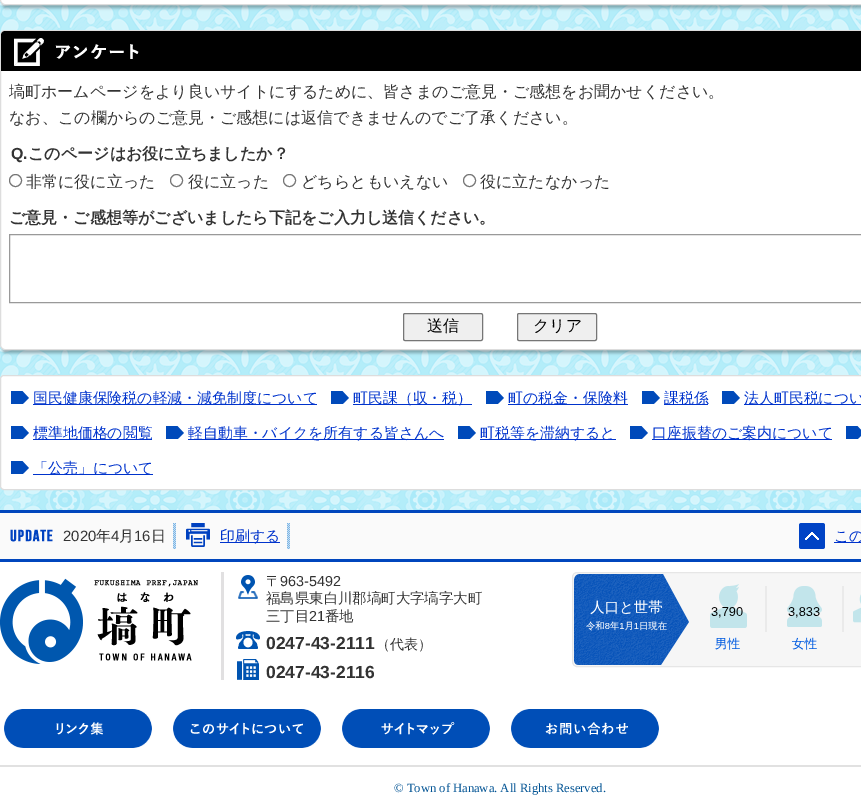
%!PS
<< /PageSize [861 810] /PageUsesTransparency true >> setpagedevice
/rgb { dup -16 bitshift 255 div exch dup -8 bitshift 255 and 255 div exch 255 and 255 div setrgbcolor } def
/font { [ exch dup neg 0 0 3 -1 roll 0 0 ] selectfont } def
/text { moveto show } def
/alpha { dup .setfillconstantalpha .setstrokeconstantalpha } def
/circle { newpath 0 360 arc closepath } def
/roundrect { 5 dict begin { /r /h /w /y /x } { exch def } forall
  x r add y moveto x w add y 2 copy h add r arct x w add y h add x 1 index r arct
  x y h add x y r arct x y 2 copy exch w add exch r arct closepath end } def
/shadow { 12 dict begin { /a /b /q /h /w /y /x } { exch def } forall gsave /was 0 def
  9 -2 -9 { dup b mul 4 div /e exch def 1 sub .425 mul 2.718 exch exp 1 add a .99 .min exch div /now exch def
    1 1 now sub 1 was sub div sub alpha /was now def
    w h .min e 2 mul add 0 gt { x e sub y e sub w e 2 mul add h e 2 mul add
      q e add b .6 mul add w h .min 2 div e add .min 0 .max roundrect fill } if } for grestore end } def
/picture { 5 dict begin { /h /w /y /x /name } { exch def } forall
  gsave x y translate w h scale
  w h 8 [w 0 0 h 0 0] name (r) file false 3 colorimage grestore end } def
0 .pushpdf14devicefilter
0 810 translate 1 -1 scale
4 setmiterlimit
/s1 { /WenQuanYiZenHei-Medium 16 font 16#333333 rgb } def
/s2 { /LiberationSans-Bold 16 font 16#333333 rgb } def
/s3 { /WenQuanYiZenHei-Bold 16 font 16#333333 rgb } def
/s4 { /WenQuanYiZenHei-Medium 16 font 16#000000 rgb } def
/s5 { /WenQuanYiZenHei-Medium 14.9 font 16#0033CC rgb } def
/s6 { /LiberationSans-Regular 14.9 font 16#333333 rgb } def
/s7 { /WenQuanYiZenHei-Medium 14.9 font 16#333333 rgb } def
/s8 { /WenQuanYiZenHei-Medium 14.4 font 16#333333 rgb } def
/s9 { /LiberationSans-Regular 14.4 font 16#333333 rgb } def
/s10 { /LiberationSans-Bold 17.5 font 16#333333 rgb } def
/s11 { /WenQuanYiZenHei-Medium 14 font 16#333333 rgb } def
/s12 { /LiberationSerif-Regular 12.6 font 16#005293 rgb } def
16#FFFFFF rgb
0 0 861 810 rectfill
(pic1.raw) 0 0 861 510 picture
16#000000 rgb
3 -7 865 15 2 1.5 0.3 shadow
16#FFFFFF rgb
0.5 -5.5 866 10 4.5 roundrect gsave fill grestore
16#DDDDDD rgb
stroke
16#000000 rgb
3 39 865 314 2 1.5 0.3 shadow
16#FFFFFF rgb
0.5 30.5 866 319 4.5 roundrect gsave fill grestore
16#DDDDDD rgb
stroke
16#000000 rgb
5 31 moveto 861 31 lineto 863 31 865 33 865 35 curveto 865 71 lineto 1 71 lineto 1 35 lineto 1 33 3 31 5 31 curveto closepath fill
(pic2.raw) 14 38 125 28 picture
s1
(塙町ホームページをより良いサイトにするために、皆さまのご意見・ご感想をお聞かせください。) 9 97 text
(なお、この欄からのご意見・ご感想には返信できませんのでご了承ください。) 9 123 text
s2
(Q.) 11 159 text
s3
(このページはお役に立ちましたか？) 28 159 text
16#767676 rgb
15.5 180.5 6 circle stroke
s1
(非常に役に立った) 26 187 text
16#767676 rgb
176.5 180.5 6 circle stroke
s1
(役に立った) 188 187 text
16#767676 rgb
289.5 180.5 6 circle stroke
s1
(どちらともいえない) 301 187 text
16#767676 rgb
469.5 180.5 6 circle stroke
s1
(役に立たなかった) 480 187 text
s3
(ご意見・ご感想等がございましたら下記をご入力し送信ください。) 9 223 text
16#999999 rgb
9.5 234.5 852 68 rectstroke
16#EFEFEF rgb
403.5 313.5 79 27 1.5 roundrect gsave fill grestore
16#767676 rgb
stroke
s4
(送信) 427 331 text
16#EFEFEF rgb
517.5 313.5 79 27 1.5 roundrect gsave fill grestore
16#767676 rgb
stroke
s4
(クリア) 533 331 text
16#FFFFFF rgb
0.5 375.5 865 114 3.5 roundrect gsave fill grestore
16#DDDDDD rgb
stroke
(pic3.raw) 11 391 18 13 picture
16#0033CC rgb
33 404 284 1 rectfill
s5
(国民健康保険税の軽減・減免制度について) 33 403 text
(pic3.raw) 331 391 18 13 picture
353 404 119 1 rectfill
(町民課（収・税）) 353 403 text
(pic3.raw) 486 391 18 13 picture
508 404 120 1 rectfill
(町の税金・保険料) 508 403 text
(pic3.raw) 642 391 18 13 picture
664 404 44 1 rectfill
(課税係) 664 403 text
(pic3.raw) 722 391 18 13 picture
744 404 117 1 rectfill
(法人町民税につい) 744 403 text
(pic3.raw) 11 426 18 13 picture
33 439 119 1 rectfill
(標準地価格の閲覧) 33 438 text
(pic3.raw) 166 426 18 13 picture
188 439 256 1 rectfill
(軽自動車・バイクを所有する皆さんへ) 188 438 text
(pic3.raw) 458 426 18 13 picture
480 439 136 1 rectfill
(町税等を滞納すると) 480 438 text
(pic3.raw) 630 426 18 13 picture
652 439 180 1 rectfill
(口座振替のご案内について) 652 438 text
(pic4.raw) 846 426 15 13 picture
(pic3.raw) 11 461 18 13 picture
33 474 120 1 rectfill
(「公売」について) 33 473 text
16#FAFAFA rgb
0 513 861 46 rectfill
16#0046BD rgb
0 510 861 3 rectfill
0 559 861 3 rectfill
(pic5.raw) 173 523 3 26 picture
(pic6.raw) 10 529 43 13 picture
s6
(2020) 63 541 text
s7
(年) 96 541 text
s6
(4) 111 541 text
s7
(月) 119 541 text
s6
(16) 134 541 text
s7
(日) 151 541 text
(pic5.raw) 287 523 3 26 picture
(pic7.raw) 186 523 24 24 picture
16#0033CC rgb
220 542 60 1 rectfill
(印刷する) 220 541 text
(pic8.raw) 799 523 26 26 picture
834 542 27 1 rectfill
(この) 834 541 text
(pic9.raw) 0 572 224 108 picture
(pic10.raw) 238 575 20 24 picture
s8
(〒) 266 586 text
s9
(963-5492) 280 586 text
s8
(福島県東白川郡塙町大字塙字大町) 266 603 text
(三丁目) 266 621 text
s9
(21) 309 621 text
s8
(番地) 325 621 text
(pic11.raw) 236 631 24 18 picture
s10
(0247-43-2111) 266 649 text
s11
(（代表）) 376 649 text
(pic12.raw) 237 659 22 21 picture
s10
(0247-43-2116) 266 678 text
16#F6F6F6 rgb
572.5 572.5 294 94 4.5 roundrect gsave fill grestore
16#E6E6E6 rgb
stroke
(pic13.raw) 574 574 287 91 picture
(pic14.raw) 4 709 148 39 picture
(pic15.raw) 173 709 148 39 picture
(pic16.raw) 342 709 148 39 picture
(pic17.raw) 511 709 148 39 picture
16#E1E1E1 rgb
0 765 861 2 rectfill
s12
(© Town of Hanawa. All Rights Reserved.) 394 792 text
.poppdf14devicefilter showpage
